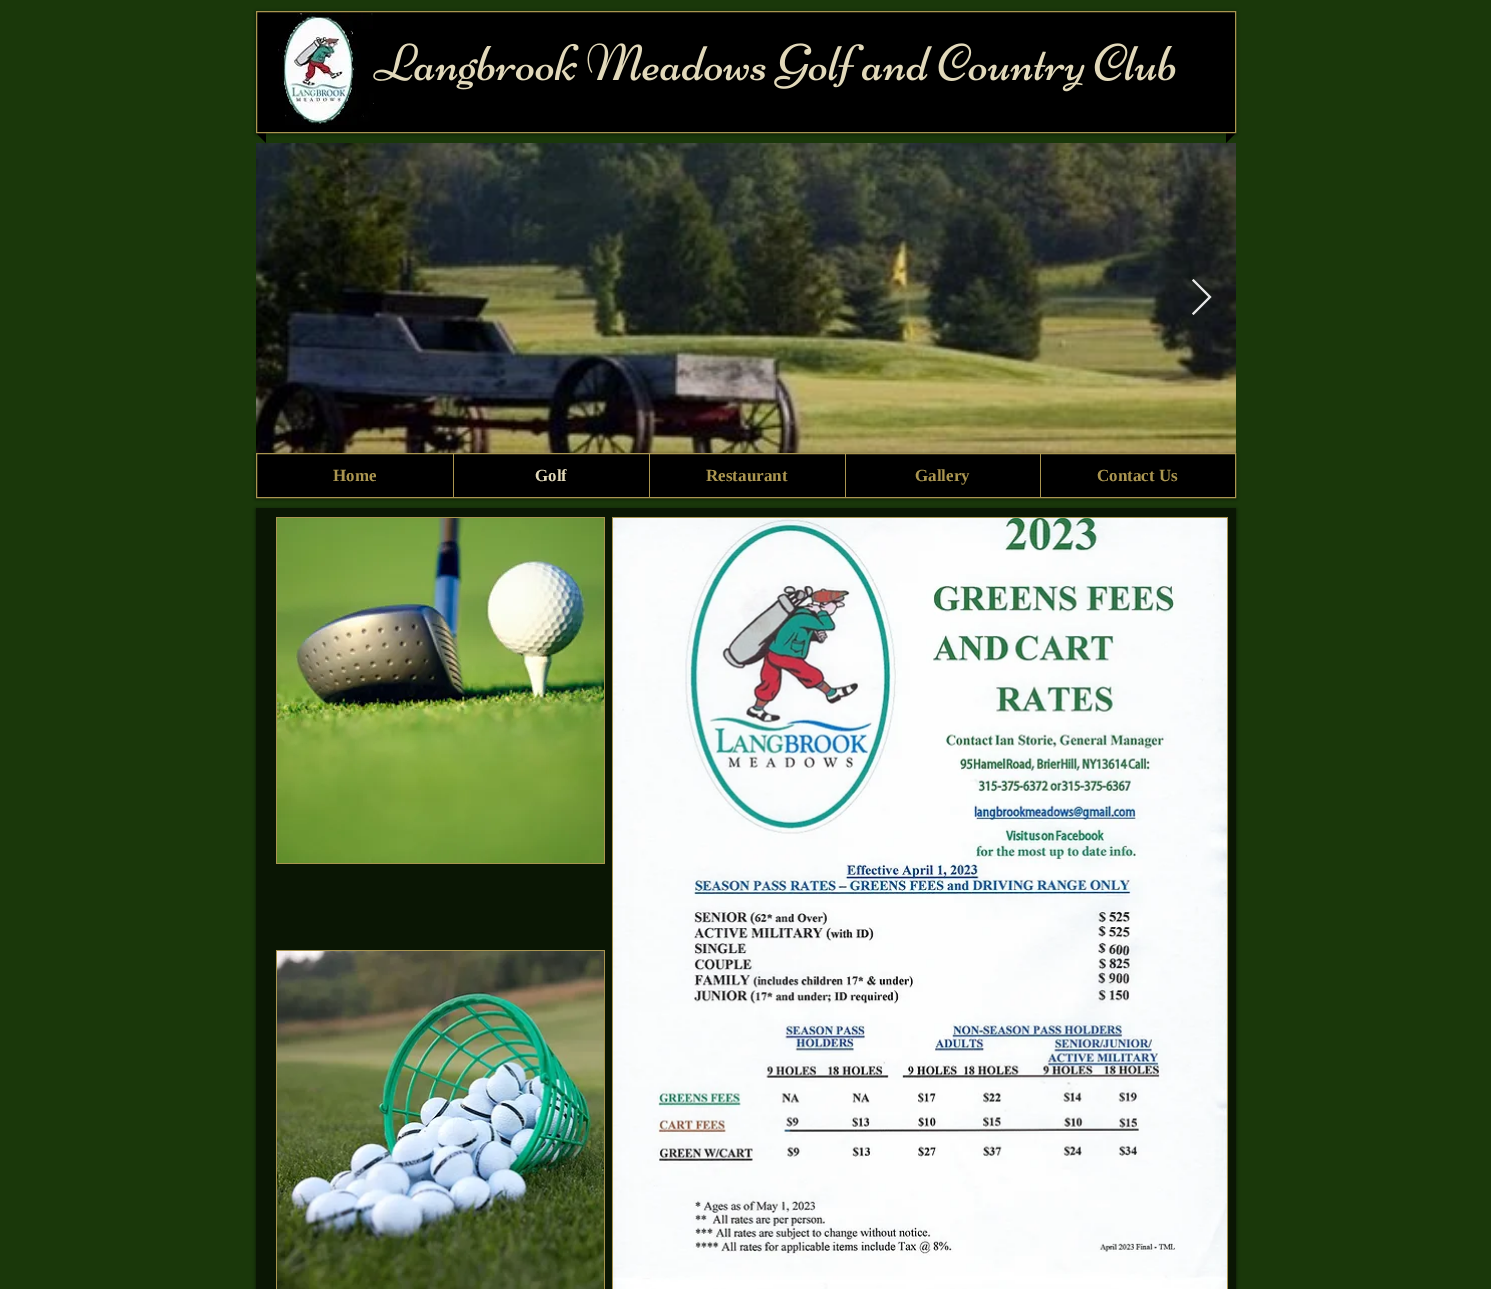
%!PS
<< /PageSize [1491 1289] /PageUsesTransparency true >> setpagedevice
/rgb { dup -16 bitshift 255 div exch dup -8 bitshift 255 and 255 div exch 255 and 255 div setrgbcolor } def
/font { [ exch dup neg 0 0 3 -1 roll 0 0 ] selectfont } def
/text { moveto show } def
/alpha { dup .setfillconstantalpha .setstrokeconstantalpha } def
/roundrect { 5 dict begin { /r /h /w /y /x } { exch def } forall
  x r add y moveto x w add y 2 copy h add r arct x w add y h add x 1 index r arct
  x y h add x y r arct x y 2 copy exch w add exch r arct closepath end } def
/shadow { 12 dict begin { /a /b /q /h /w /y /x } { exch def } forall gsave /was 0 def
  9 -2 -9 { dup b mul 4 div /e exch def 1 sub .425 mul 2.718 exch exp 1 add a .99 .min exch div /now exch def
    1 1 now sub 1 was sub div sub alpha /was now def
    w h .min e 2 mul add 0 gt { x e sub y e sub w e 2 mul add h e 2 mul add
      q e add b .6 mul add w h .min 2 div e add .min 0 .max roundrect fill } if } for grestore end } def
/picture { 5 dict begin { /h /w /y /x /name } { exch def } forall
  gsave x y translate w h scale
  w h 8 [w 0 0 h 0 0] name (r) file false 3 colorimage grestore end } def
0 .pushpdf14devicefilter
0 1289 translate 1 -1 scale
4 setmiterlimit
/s1 { /LiberationSerif-Bold 17 font 16#AA9550 rgb } def
/s2 { /LiberationSerif-Bold 17 font 16#E2D9BA rgb } def
16#1A380A rgb
0 0 1491 1289 rectfill
16#000000 rgb
256 133 moveto 266 133 lineto 266 143 lineto closepath fill
1226 133 moveto 1236 133 lineto 1226 143 lineto closepath fill
256 12 980 122 0 2 0.6 shadow
256.5 11.5 moveto 1235.5 11.5 lineto 1235.5 132.5 lineto 256.5 132.5 lineto closepath gsave fill grestore
16#AA9550 rgb
stroke
(pic1.raw) 278 13 96 112 picture
(pic2.raw) 373 43 803 49 picture
(pic3.raw) 256 143 980 310 picture
0.9 alpha
16#FFFFFF rgb
1192 280.5 moveto 1193.5 279 lineto 1211.5 297 lineto 1193.5 315 lineto 1192 313.5 lineto 1208.5 297 lineto closepath fill
1 alpha
16#000000 rgb
256 454 980 45 0 2 0.6 shadow
256.5 453.5 moveto 1235.5 453.5 lineto 1235.5 497.5 lineto 256.5 497.5 lineto closepath gsave fill grestore
16#AA9550 rgb
stroke
s1
(Home) 333 481 text
453 454 1 43 rectfill
s2
(Golf) 535 481 text
16#AA9550 rgb
649 454 1 43 rectfill
(Restaurant) 706 481 text
845 454 1 43 rectfill
(Gallery) 915 481 text
1040 454 1 43 rectfill
(Contact Us) 1097 481 text
16#000000 rgb
256 509 980 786 0 2 0.6 shadow
16#0A1604 rgb
256 508 980 781 rectfill
16#AA9550 rgb
276 517 329 347 rectfill
(pic4.raw) 277 518 327 345 picture
612 517 616 772 rectfill
(pic5.raw) 613 518 614 771 picture
276 950 329 339 rectfill
(pic6.raw) 277 951 327 338 picture
.poppdf14devicefilter showpage
